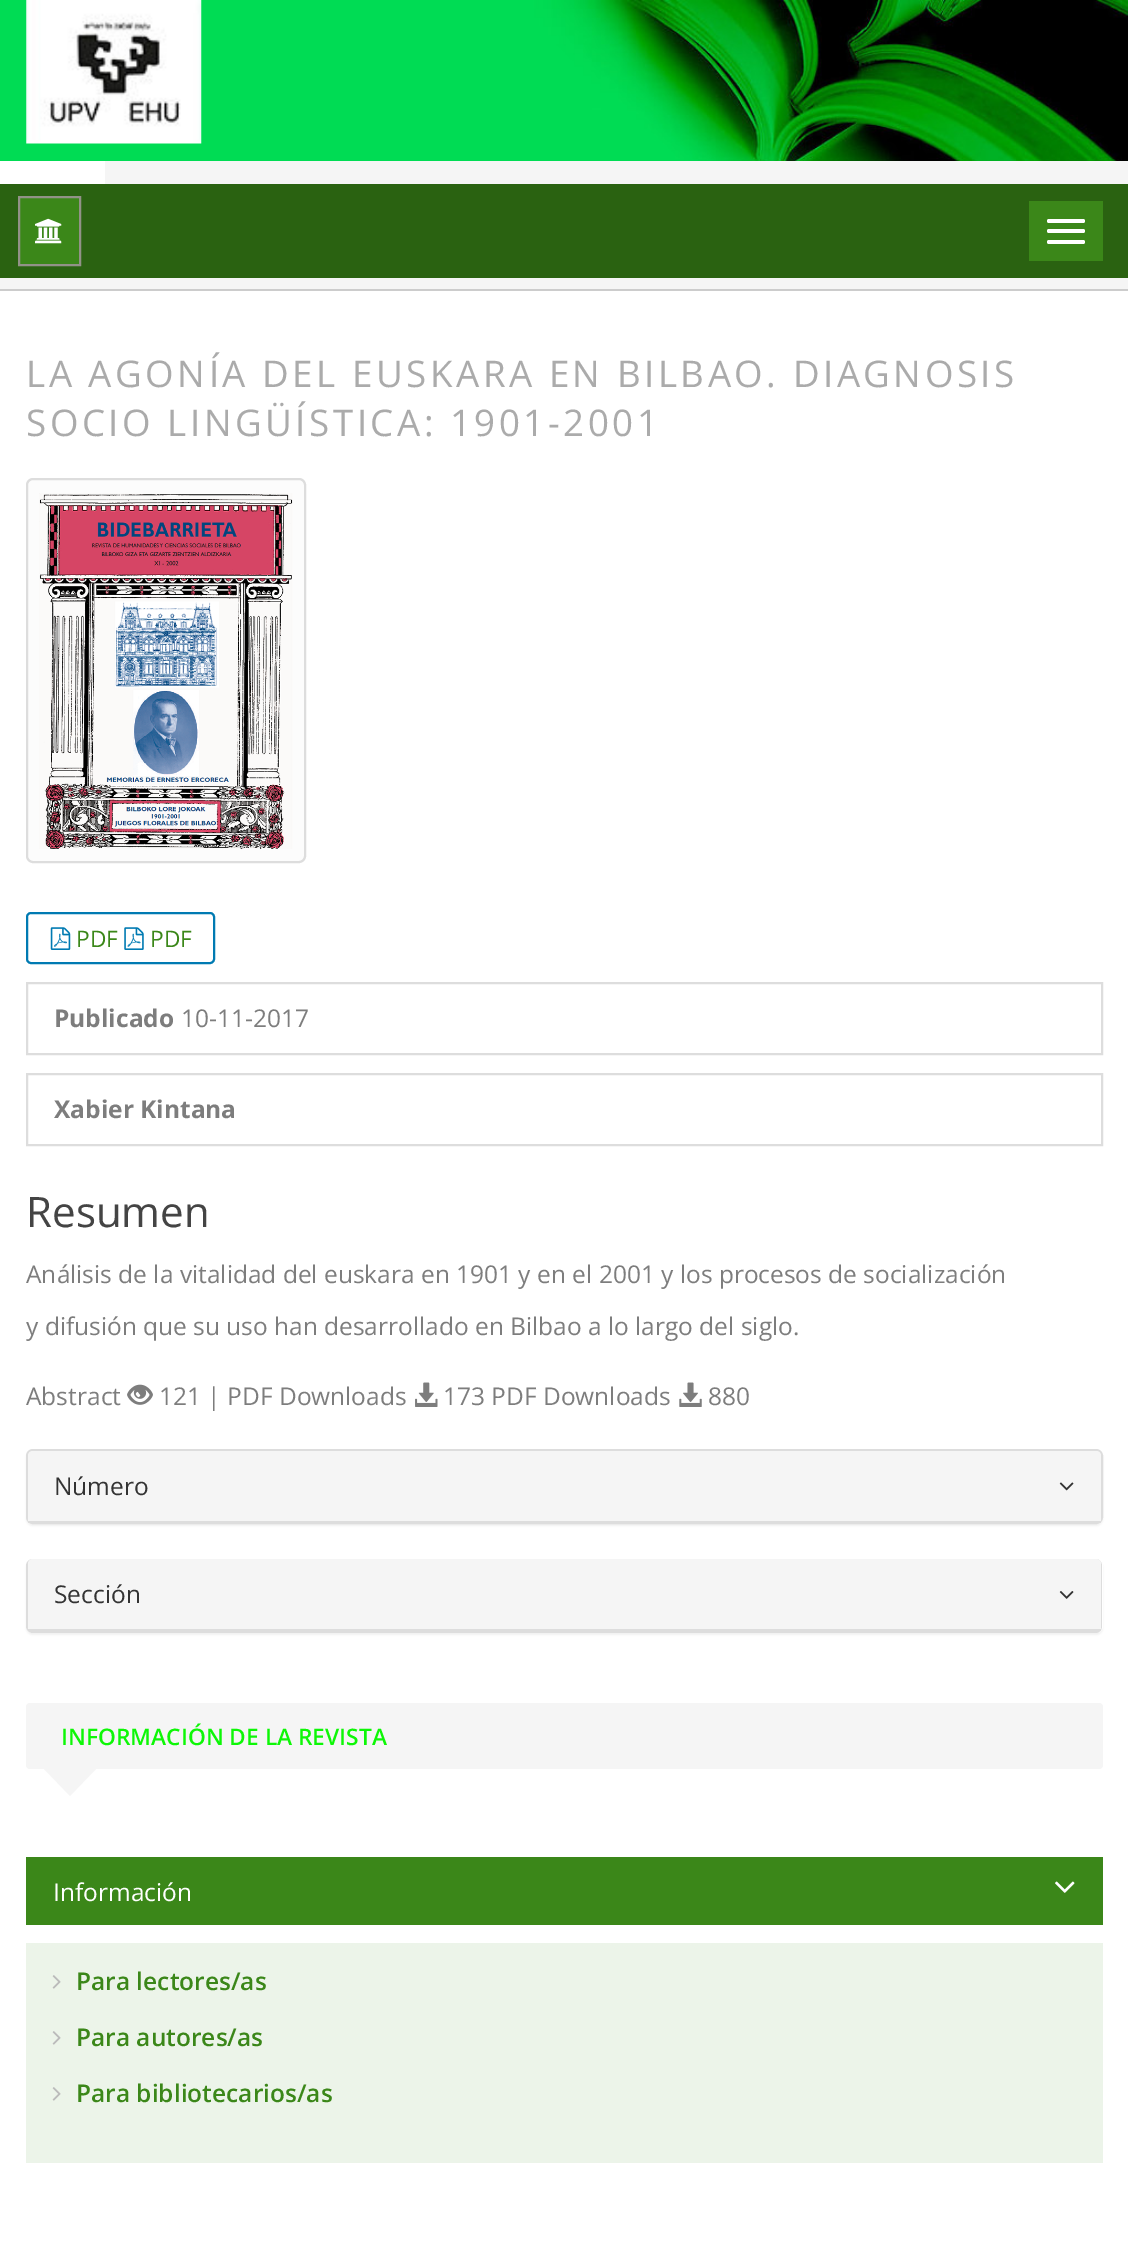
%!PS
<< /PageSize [1128 2244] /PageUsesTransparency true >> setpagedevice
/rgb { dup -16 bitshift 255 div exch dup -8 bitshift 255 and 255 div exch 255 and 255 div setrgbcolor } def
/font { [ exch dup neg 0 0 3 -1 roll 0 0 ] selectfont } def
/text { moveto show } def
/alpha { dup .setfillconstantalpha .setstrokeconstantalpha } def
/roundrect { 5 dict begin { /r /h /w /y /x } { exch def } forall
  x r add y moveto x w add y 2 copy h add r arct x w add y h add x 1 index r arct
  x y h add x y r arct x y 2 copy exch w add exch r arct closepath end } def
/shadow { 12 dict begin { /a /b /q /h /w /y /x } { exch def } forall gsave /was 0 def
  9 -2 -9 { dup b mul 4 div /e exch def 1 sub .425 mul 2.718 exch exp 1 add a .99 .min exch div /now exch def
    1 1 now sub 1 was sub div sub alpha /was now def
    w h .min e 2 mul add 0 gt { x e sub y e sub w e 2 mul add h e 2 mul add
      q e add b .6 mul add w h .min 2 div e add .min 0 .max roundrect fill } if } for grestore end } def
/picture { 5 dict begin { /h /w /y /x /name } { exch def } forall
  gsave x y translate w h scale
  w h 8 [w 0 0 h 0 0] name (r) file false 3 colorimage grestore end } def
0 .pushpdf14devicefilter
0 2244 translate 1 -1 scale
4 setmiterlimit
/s1 { /OpenSans-Regular 22.75 font 16#3B8719 rgb } def
/s2 { /OpenSans-Bold 24.5 font 16#7D7D7D rgb } def
/s3 { /OpenSans-Regular 24.5 font 16#7D7D7D rgb } def
/s4 { /OpenSans-Regular 42 font 16#444444 rgb } def
/s5 { /OpenSans-Regular 24.5 font 16#333333 rgb } def
/s6 { /OpenSans-SemiBold 22.75 font 16#0DF706 rgb } def
/s7 { /OpenSans-Regular 24.5 font 16#FFFFFF rgb } def
/s8 { /OpenSans-SemiBold 24.5 font 16#3B8719 rgb } def
16#FFFFFF rgb
0 0 1128 2244 rectfill
(pic1.raw) 0 0 1128 161 picture
(pic2.raw) 26 0 176 144 picture
16#F5F5F5 rgb
105 161 1023 23 rectfill
16#2A6211 rgb
0 184 1128 94 rectfill
16#3B8719 rgb
19 197 moveto 80 197 lineto 80 265 lineto 19 265 lineto closepath gsave fill grestore
16#929288 rgb
2 setlinewidth
stroke
(pic3.raw) 35 218 27 26 picture
16#3B8719 rgb
1029 201 74 60 rectfill
16#FFFFFF rgb
1047 219 38 4 2 roundrect fill
1047 229 38 4 2 roundrect fill
1047 240 38 4 2 roundrect fill
16#F5F5F5 rgb
0 278 1128 11 rectfill
16#CCCCCC rgb
0 289 1128 2 rectfill
/OpenSans-Regular 36.75 font
16#ABABAB rgb
26 387 moveto 3.5 0 (LA AGONÍA DEL EUSKARA EN BILBAO. DIAGNOSIS) ashow
26 436 moveto 3.5 0 (SOCIO LINGÜÍSTICA: 1901-2001) ashow
16#FCFCFC rgb
27 479 278 383 6 roundrect gsave fill grestore
16#DDDDDD rgb
stroke
(pic4.raw) 39 493 254 356 picture
16#007AB2 rgb
27 913 187 50 4 roundrect stroke
(pic5.raw) 50 927 21 23 picture
s1
(PDF) 76 947 text
(pic6.raw) 124 927 20 23 picture
(PDF) 150 947 text
16#DDDDDD rgb
27 983 1075 71 rectstroke
s2
(Publicado) 54 1027 text
s3
(10-11-2017) 181 1027 text
16#DDDDDD rgb
27 1074 1075 71 rectstroke
s2
(Xabier Kintana) 54 1118 text
s4
(Resumen) 26 1227 text
s3
(Análisis de la vitalidad del euskara en 1901 y en el 2001 y los procesos de socialización) 26 1283 text
(y difusión que su uso han desarrollado en Bilbao a lo largo del siglo.) 26 1335 text
(Abstract) 26 1405 text
(pic7.raw) 127 1384 26 21 picture
(121 | PDF Downloads) 159 1405 text
(pic8.raw) 415 1382 23 25 picture
(173 PDF Downloads) 443 1405 text
(pic9.raw) 679 1382 23 25 picture
(880) 708 1405 text
16#000000 rgb
26 1451 1077 75 7 1 0.05 shadow
16#DDDDDD rgb
27 1450 1075 73 6 roundrect stroke
16#F5F5F5 rgb
33 1451 moveto 1096 1451 lineto 1099 1451 1101 1453 1101 1456 curveto 1101 1523 lineto 28 1523 lineto 28 1456 lineto 28 1453 30 1451 33 1451 curveto closepath fill
16#DDDDDD rgb
28 1521 1073 2 rectfill
s5
(Número) 54 1495 text
(pic10.raw) 1059 1482 15 9 picture
16#000000 rgb
26 1561 1077 74 7 1 0.05 shadow
16#FFFFFF rgb
26 1559 1077 74 7 roundrect fill
16#DDDDDD rgb
33 1559 moveto 1096 1559 lineto 1099 1559 1102 1562 1102 1566 curveto 1102 1626 lineto 1102 1630 1099 1633 1096 1633 curveto 33 1633 lineto 29 1633 26 1630 26 1626 curveto 26 1566 lineto 26 1562 29 1559 33 1559 curveto closepath 33 1559 moveto 1096 1559 lineto 1098 1559 1101 1562 1101 1566 curveto 1101 1626 lineto 1101 1629 1098 1631 1096 1631 curveto 33 1631 lineto 30 1631 28 1629 28 1626 curveto 28 1566 lineto 28 1562 30 1559 33 1559 curveto closepath eofill
16#F5F5F5 rgb
33 1559 moveto 1096 1559 lineto 1099 1559 1101 1561 1101 1564 curveto 1101 1631 lineto 28 1631 lineto 28 1564 lineto 28 1561 30 1559 33 1559 curveto closepath fill
16#DDDDDD rgb
28 1629 1073 2 rectfill
s5
(Sección) 54 1603 text
(pic11.raw) 1059 1591 15 8 picture
16#F5F5F5 rgb
26 1703 1077 66 4 roundrect fill
s6
(INFORMACIÓN DE LA REVISTA) 61 1745 text
16#F5F5F5 rgb
44 1769 moveto 96 1769 lineto 70 1796 lineto closepath fill
16#3B8719 rgb
26 1857 1077 68 rectfill
s7
(Información) 53 1901 text
(pic12.raw) 1055 1881 20 12 picture
16#ECF4E9 rgb
26 1943 1077 220 rectfill
(pic13.raw) 52 1975 9 14 picture
s8
(Para lectores/as) 76 1990 text
(pic13.raw) 52 2031 9 14 picture
(Para autores/as) 76 2046 text
(pic13.raw) 52 2087 9 14 picture
(Para bibliotecarios/as) 76 2102 text
.poppdf14devicefilter showpage
